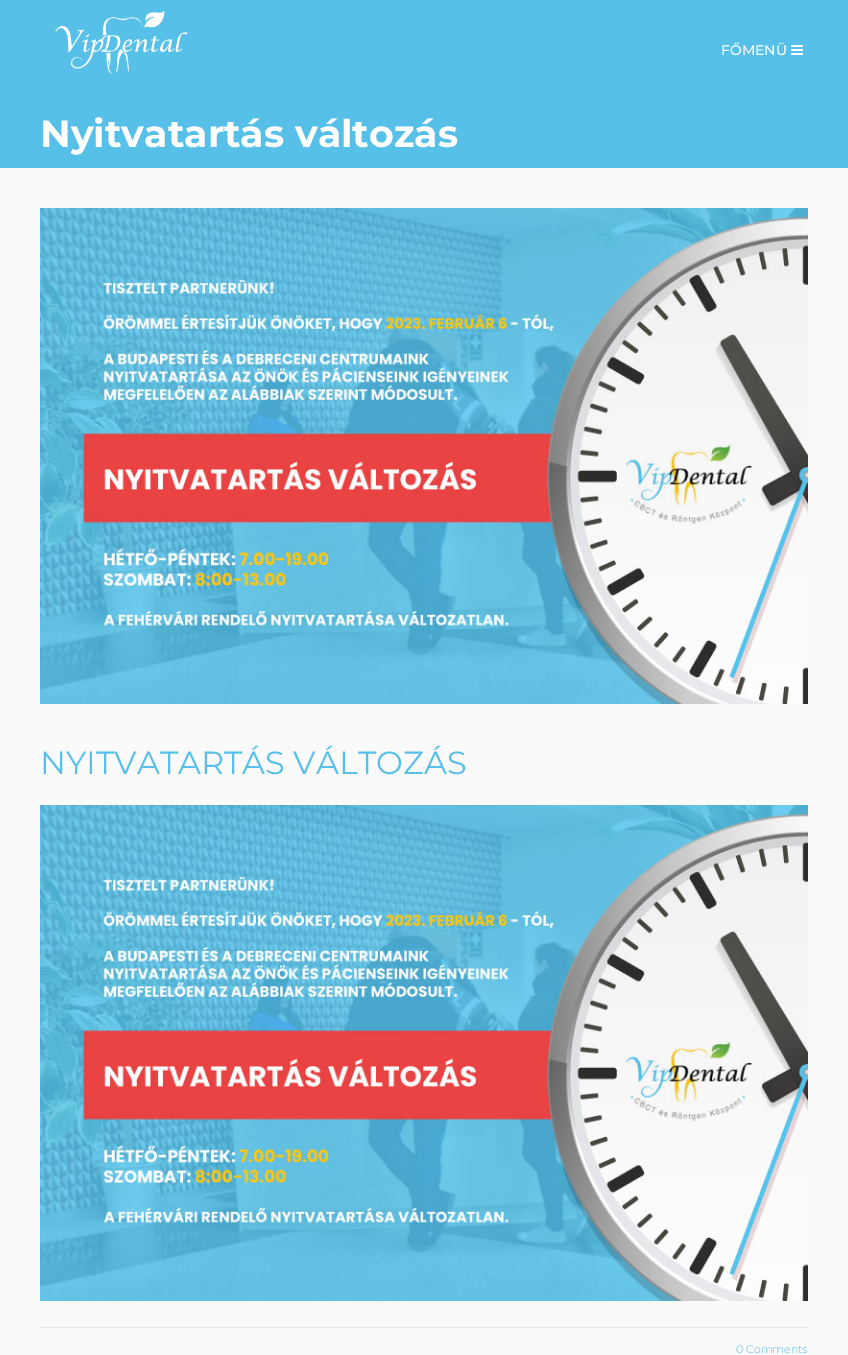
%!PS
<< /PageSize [848 1355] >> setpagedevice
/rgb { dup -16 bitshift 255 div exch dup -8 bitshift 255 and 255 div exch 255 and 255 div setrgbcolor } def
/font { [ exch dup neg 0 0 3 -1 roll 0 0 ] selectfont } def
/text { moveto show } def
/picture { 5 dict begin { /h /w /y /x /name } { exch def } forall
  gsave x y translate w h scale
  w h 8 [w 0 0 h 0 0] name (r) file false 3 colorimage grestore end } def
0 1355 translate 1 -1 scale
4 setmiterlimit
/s1 { /Montserrat-Medium 14 font 16#FFFFFF rgb } def
/s2 { /Montserrat-Bold 38 font 16#FFFFFF rgb } def
/s3 { /Montserrat-Regular 32 font 16#57C0E8 rgb } def
/s4 { /Montserrat-Light 11 font 16#57C0E8 rgb } def
16#FAFAFA rgb
0 0 848 1355 rectfill
16#57C0E8 rgb
0 0 848 168 rectfill
(pic1.raw) 55 10 133 64 picture
s1
(FŐMENÜ) 721 55 text
(pic2.raw) 791 45 12 10 picture
s2
(Nyitvatartás változás) 40 147 text
(pic3.raw) 40 208 768 496 picture
s3
(NYITVATARTÁS VÁLTOZÁS) 40 774 text
(pic3.raw) 40 805 768 496 picture
16#E9E9E9 rgb
40 1327 768 1 rectfill
s4
(0 Comments) 736 1353 text
showpage
